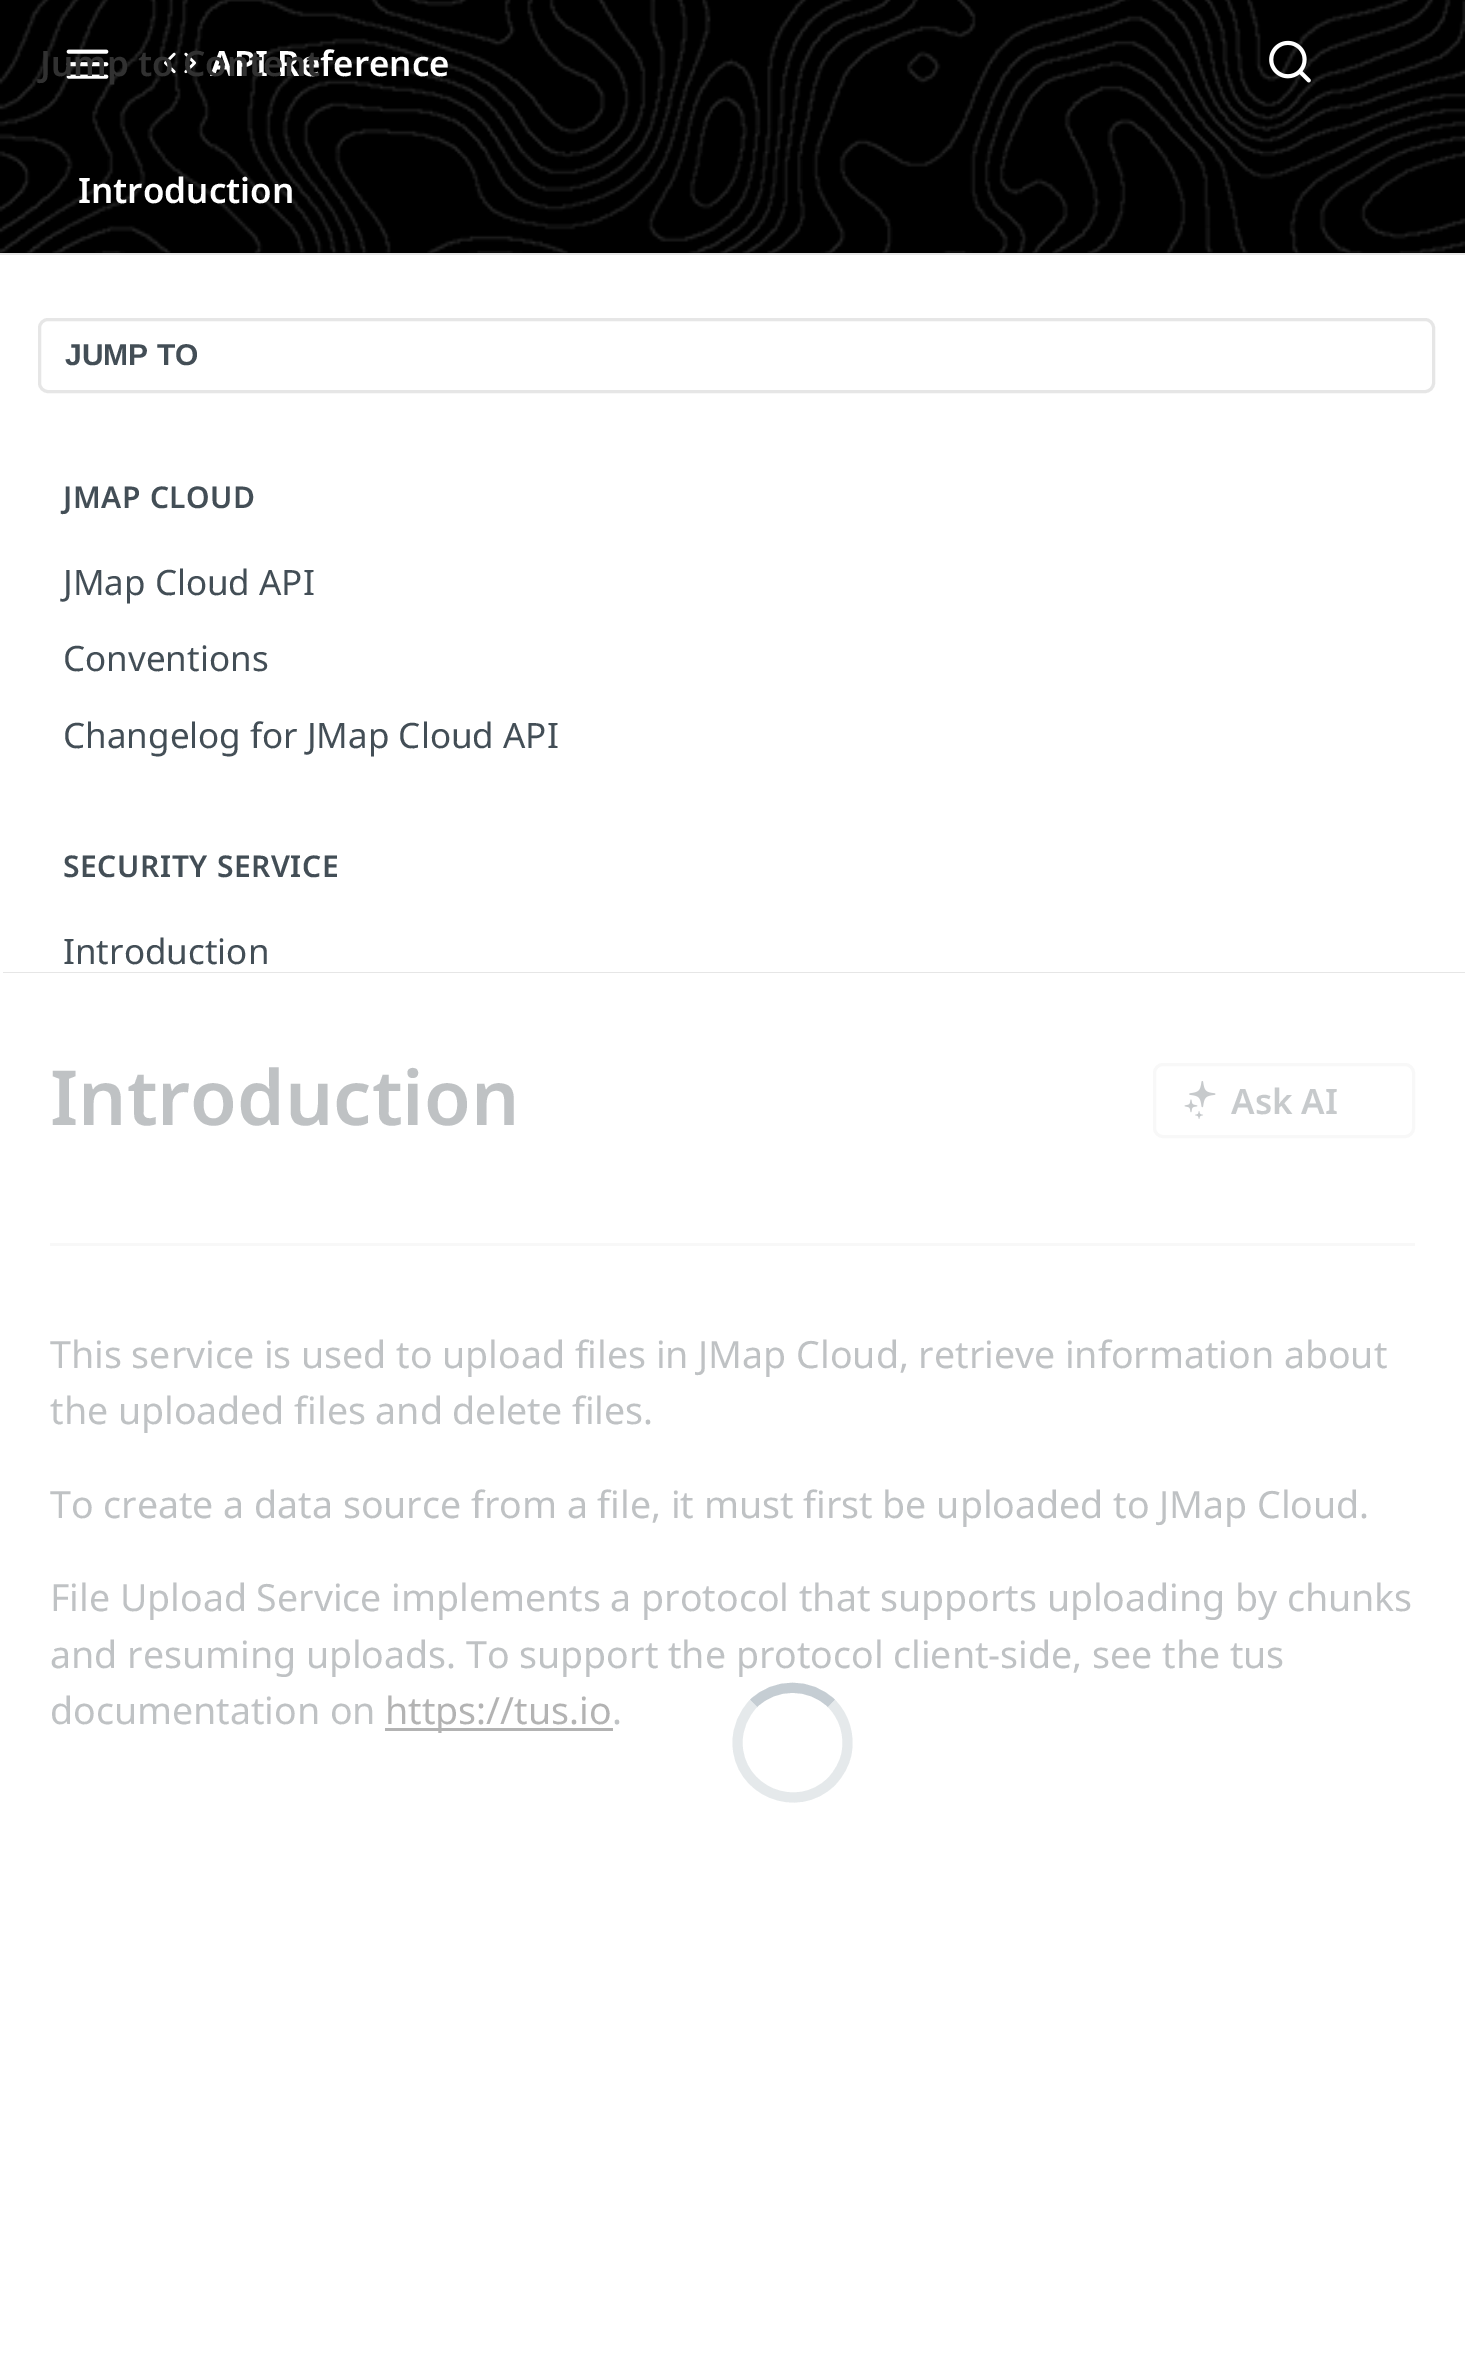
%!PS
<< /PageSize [1465 2368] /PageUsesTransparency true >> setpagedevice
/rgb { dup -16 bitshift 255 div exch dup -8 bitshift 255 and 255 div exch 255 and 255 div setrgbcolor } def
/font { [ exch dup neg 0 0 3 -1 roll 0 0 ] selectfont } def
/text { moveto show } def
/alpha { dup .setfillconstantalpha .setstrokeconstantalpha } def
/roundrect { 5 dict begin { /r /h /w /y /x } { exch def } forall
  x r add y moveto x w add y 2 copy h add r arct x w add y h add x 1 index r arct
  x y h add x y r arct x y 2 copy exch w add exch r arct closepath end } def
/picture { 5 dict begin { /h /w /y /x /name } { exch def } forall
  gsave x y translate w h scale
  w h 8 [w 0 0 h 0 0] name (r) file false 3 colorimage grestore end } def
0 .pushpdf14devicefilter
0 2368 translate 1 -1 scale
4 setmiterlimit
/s1 { /NotoSans-SemiBold 35 font 16#FFFFFF rgb } def
/s2 { /NotoSans-SemiBold 35 font 16#313131 rgb } def
/s3 { /LiberationSans-Bold 30 font 16#434E56 rgb } def
/s4 { /NotoSans-Regular 35 font 16#434E56 rgb } def
/s5 { /NotoSans-SemiBold 76 font 16#BFC2C4 rgb } def
/s6 { /NotoSans-SemiBold 35 font 16#C7CACC rgb } def
/s7 { /NotoSans-Regular 37.5 font 16#BFC2C4 rgb } def
/s8 { /NotoSans-Regular 37.5 font 16#B3B3B3 rgb } def
16#FFFFFF rgb
0 0 1465 2368 rectfill
16#E6E6E6 rgb
0 253 1465 2 rectfill
16#000000 rgb
0 0 1465 253 rectfill
(pic1.raw) 0 0 1465 253 picture
0.1 alpha
95 125 1357 3 rectfill
1 alpha
(pic2.raw) 66 49 43 30 picture
(pic3.raw) 164 52 32 22 picture
s1
(API Reference) 210 76 text
s2
(Jump to Content) 40 76 text
(pic4.raw) 1269 40 42 43 picture
0.1 alpha
16#000000 rgb
50 153 1390 75 10 roundrect fill
3 setlinewidth
51.5 154.5 1387 72 8.5 roundrect stroke
1 alpha
s1
(Introduction) 78 203 text
16#E6E6E6 rgb
3 972 moveto 3 973 lineto 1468 973 lineto 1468 253 lineto 1465 253 lineto 1465 972 lineto closepath fill
39.5 319.5 1394 72 8.5 roundrect stroke
s3
(JUMP TO) 65 365 text
/NotoSans-SemiBold 30 font
63 508 moveto 0.6 0 (JMAP CLOUD) ashow
s4
(JMap Cloud API) 63 595 text
(Conventions) 63 671 text
(Changelog for JMap Cloud API) 63 748 text
/NotoSans-SemiBold 30 font
63 877 moveto 0.6 0 (SECURITY SERVICE) ashow
s4
(Introduction) 63 964 text
16#F8F8F8 rgb
50 1243 1365 3 rectfill
s5
(Introduction) 50 1125 text
16#F8F8F8 rgb
1154.5 1064.5 259 72 8.5 roundrect stroke
(pic5.raw) 1184 1081 32 38 picture
s6
(Ask AI) 1231 1114 text
s7
(This service is used to upload files in JMap Cloud, retrieve information about) 50 1368 text
(the uploaded files and delete files.) 50 1424 text
(To create a data source from a file, it must first be uploaded to JMap Cloud.) 50 1518 text
(File Upload Service implements a protocol that supports uploading by chunks) 50 1611 text
(and resuming uploads. To support the protocol client-side, see the tus) 50 1668 text
(documentation on) 50 1724 text
16#B3B3B3 rgb
385 1728 228 3 rectfill
(https://tus.io) 385 1724 text
s7
(.) 612 1724 text
16#C5CDD3 rgb
10 setlinewidth
753.5 1703.5 moveto 775 1682.5 810 1682.5 831.5 1703.5 curveto stroke
16#E5E9EB rgb
831.5 1703.5 moveto 844.5 1716.5 850 1735.5 846.5 1753.5 curveto 844.5 1764 839 1773.5 831.5 1781.5 curveto 797 1816 737.5 1791 737.5 1742.5 curveto 737.5 1728 743.5 1714 753.5 1703.5 curveto stroke
.poppdf14devicefilter showpage
